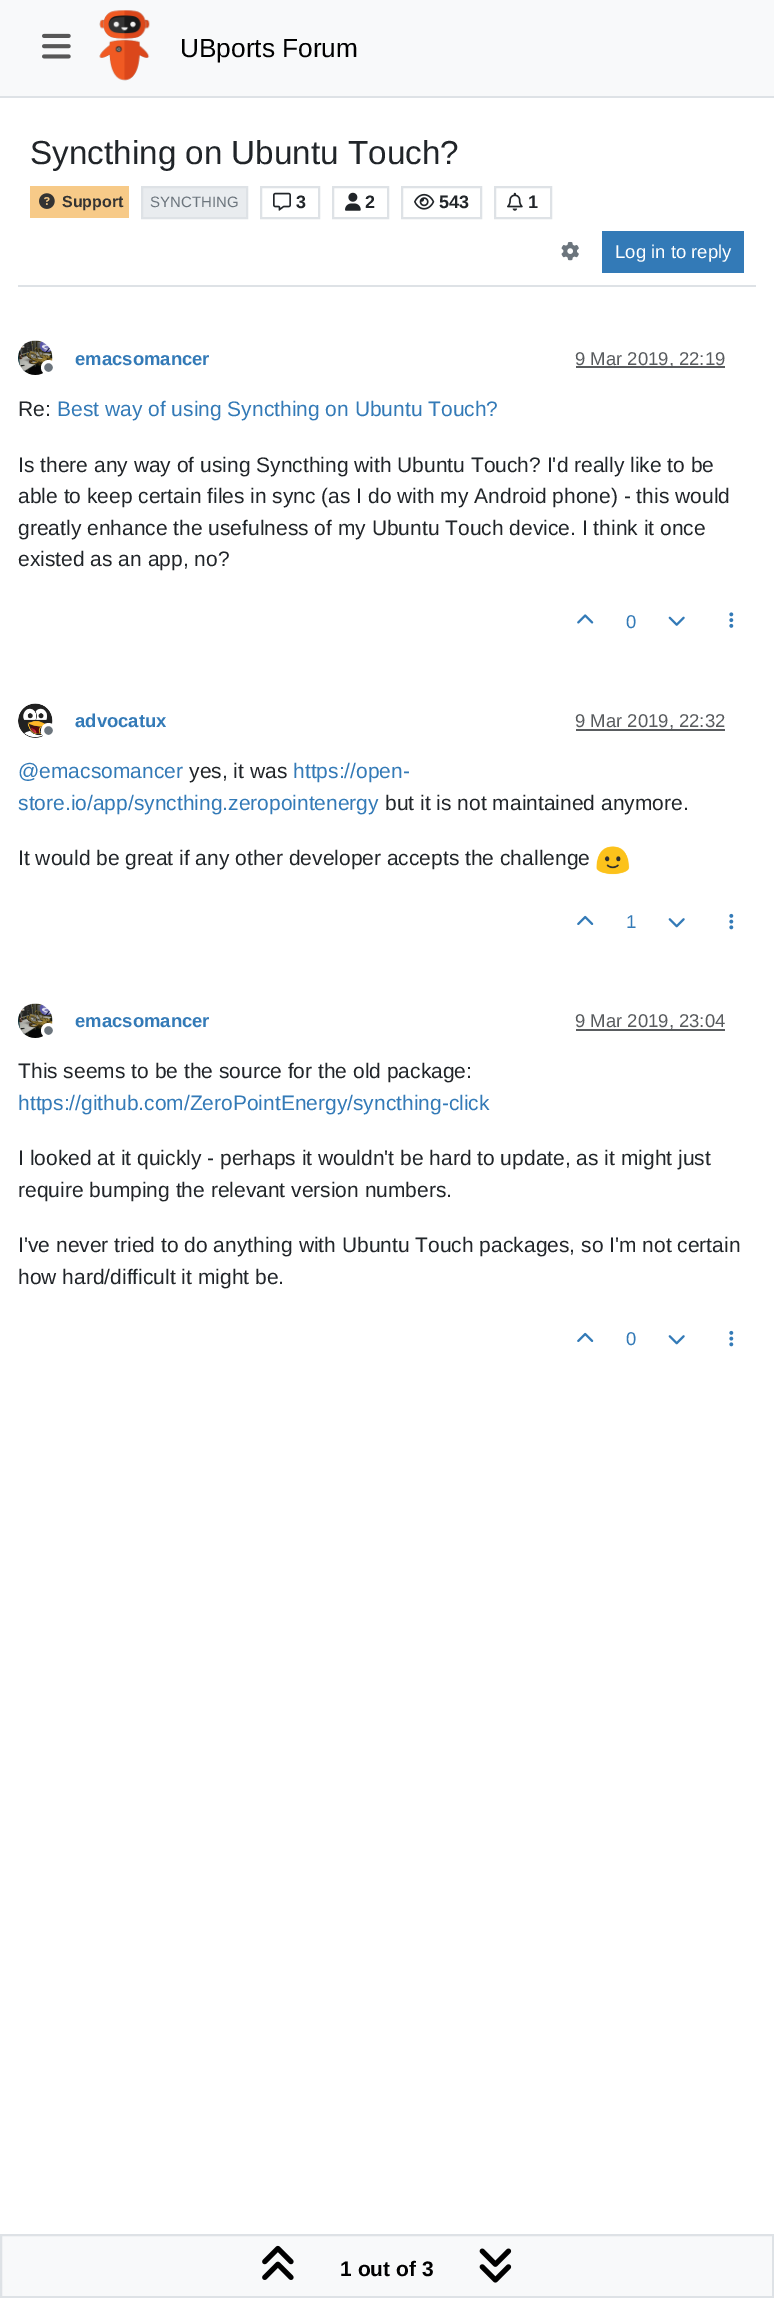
%!PS
<< /PageSize [774 2298] >> setpagedevice
/rgb { dup -16 bitshift 255 div exch dup -8 bitshift 255 and 255 div exch 255 and 255 div setrgbcolor } def
/font { [ exch dup neg 0 0 3 -1 roll 0 0 ] selectfont } def
/text { moveto show } def
/circle { newpath 0 360 arc closepath } def
/picture { 5 dict begin { /h /w /y /x /name } { exch def } forall
  gsave x y translate w h scale
  w h 8 [w 0 0 h 0 0] name (r) file false 3 colorimage grestore end } def
0 2298 translate 1 -1 scale
4 setmiterlimit
/s1 { /LiberationSans-Regular 26.25 font 16#000000 rgb } def
/s2 { /LiberationSans-Regular 33.25 font 16#212529 rgb } def
/s3 { /LiberationSans-Bold 16 font 16#333333 rgb } def
/s4 { /LiberationSans-Regular 15 font 16#6C757D rgb } def
/s5 { /LiberationSans-Bold 18 font 16#212529 rgb } def
/s6 { /LiberationSans-Regular 18.5 font 16#FFFFFF rgb } def
/s7 { /LiberationSans-Bold 18.5 font 16#337AB7 rgb } def
/s8 { /LiberationSans-Regular 18.5 font 16#585B5E rgb } def
/s9 { /LiberationSans-Regular 21 font 16#212529 rgb } def
/s10 { /LiberationSans-Regular 21 font 16#337AB7 rgb } def
/s11 { /LiberationSans-Regular 18.5 font 16#337AB7 rgb } def
/s12 { /LiberationSans-Bold 21 font 16#000000 rgb } def
16#FFFFFF rgb
0 0 774 2298 rectfill
16#F8F9FA rgb
0 0 774 96 rectfill
16#DEE2E6 rgb
0 96 774 2 rectfill
(pic1.raw) 42 33 29 26 picture
(pic2.raw) 99 10 51 71 picture
s1
(UBports Forum) 180 57 text
16#DEE2E6 rgb
18 285 738 2 rectfill
s2
(Syncthing on Ubuntu Touch?) 30 164 text
16#F7CA88 rgb
30 186 99 32 rectfill
(pic3.raw) 39 193 16 16 picture
s3
(Support) 62 207 text
16#E9ECEF rgb
142 187 moveto 247 187 lineto 247 218 lineto 142 218 lineto closepath gsave fill grestore
16#DEE2E6 rgb
2 setlinewidth
stroke
s4
(SYNCTHING) 150 207 text
16#DEE2E6 rgb
261 187 58 31 rectstroke
(pic4.raw) 273 192 18 19 picture
s5
(3) 296 208 text
16#DEE2E6 rgb
333 187 55 31 rectstroke
(pic5.raw) 345 192 16 19 picture
s5
(2) 365 208 text
16#DEE2E6 rgb
402 187 79 31 rectstroke
(pic6.raw) 414 193 21 17 picture
s5
(543) 439 208 text
16#DEE2E6 rgb
495 187 56 31 rectstroke
(pic7.raw) 507 192 16 19 picture
s5
(1) 528 208 text
(pic8.raw) 561 241 18 20 picture
16#337AB7 rgb
602 231 142 42 rectfill
s6
(Log in to reply) 615 258 text
(pic9.raw) 18 340 35 35 picture
16#6C757D rgb
48.5 367.5 6 circle gsave fill grestore
16#FFFFFF rgb
3 setlinewidth
stroke
s7
(emacsomancer) 75 365 text
16#595C5F rgb
576 366 149 2 rectfill
s8
(9 Mar 2019, 22:19) 575 365 text
s9
(Re:) 18 416 text
s10
(Best way of using Syncthing on Ubuntu Touch?) 57 416 text
s9
(Is there any way of using Syncthing with Ubuntu Touch? I'd really like to be) 18 472 text
(able to keep certain files in sync \(as I do with my Android phone\) - this would) 18 503 text
(greatly enhance the usefulness of my Ubuntu Touch device. I think it once) 18 535 text
(existed as an app, no?) 18 566 text
(pic10.raw) 577 614 17 10 picture
s11
(0) 626 628 text
(pic11.raw) 668 616 17 10 picture
(pic12.raw) 729 612 5 16 picture
(pic13.raw) 18 703 35 35 picture
16#6C757D rgb
48.5 730.5 6 circle gsave fill grestore
16#FFFFFF rgb
stroke
s7
(advocatux) 75 727 text
16#595C5F rgb
576 729 149 2 rectfill
s8
(9 Mar 2019, 22:32) 575 727 text
s10
(@emacsomancer) 18 778 text
s9
(yes, it was) 189 778 text
s10
(https://open-) 293 778 text
(store.io/app/syncthing.zeropointenergy) 18 810 text
s9
(but it is not maintained anymore.) 385 810 text
(It would be great if any other developer accepts the challenge) 18 865 text
(pic14.raw) 596 846 34 29 picture
(pic15.raw) 577 915 17 10 picture
s11
(1) 626 928 text
(pic16.raw) 668 918 17 10 picture
(pic17.raw) 729 913 5 17 picture
(pic18.raw) 18 1003 35 35 picture
16#6C757D rgb
48.5 1030.5 6 circle gsave fill grestore
16#FFFFFF rgb
stroke
s7
(emacsomancer) 75 1027 text
16#595C5F rgb
576 1029 149 2 rectfill
s8
(9 Mar 2019, 23:04) 575 1027 text
s9
(This seems to be the source for the old package:) 18 1078 text
s10
(https://github.com/ZeroPointEnergy/syncthing-click) 18 1110 text
s9
(I looked at it quickly - perhaps it wouldn't be hard to update, as it might just) 18 1165 text
(require bumping the relevant version numbers.) 18 1197 text
(I've never tried to do anything with Ubuntu Touch packages, so I'm not certain) 18 1252 text
(how hard/difficult it might be.) 18 1284 text
(pic15.raw) 577 1332 17 10 picture
s11
(0) 626 1345 text
(pic16.raw) 668 1335 17 10 picture
(pic17.raw) 729 1330 5 17 picture
16#F8F9FA rgb
1 2235 moveto 773 2235 lineto 773 2297 lineto 1 2297 lineto closepath gsave fill grestore
16#DEE2E6 rgb
2 setlinewidth
stroke
(pic19.raw) 262 2245 32 35 picture
s12
(1 out of 3) 340 2276 text
(pic20.raw) 479 2248 33 35 picture
showpage
